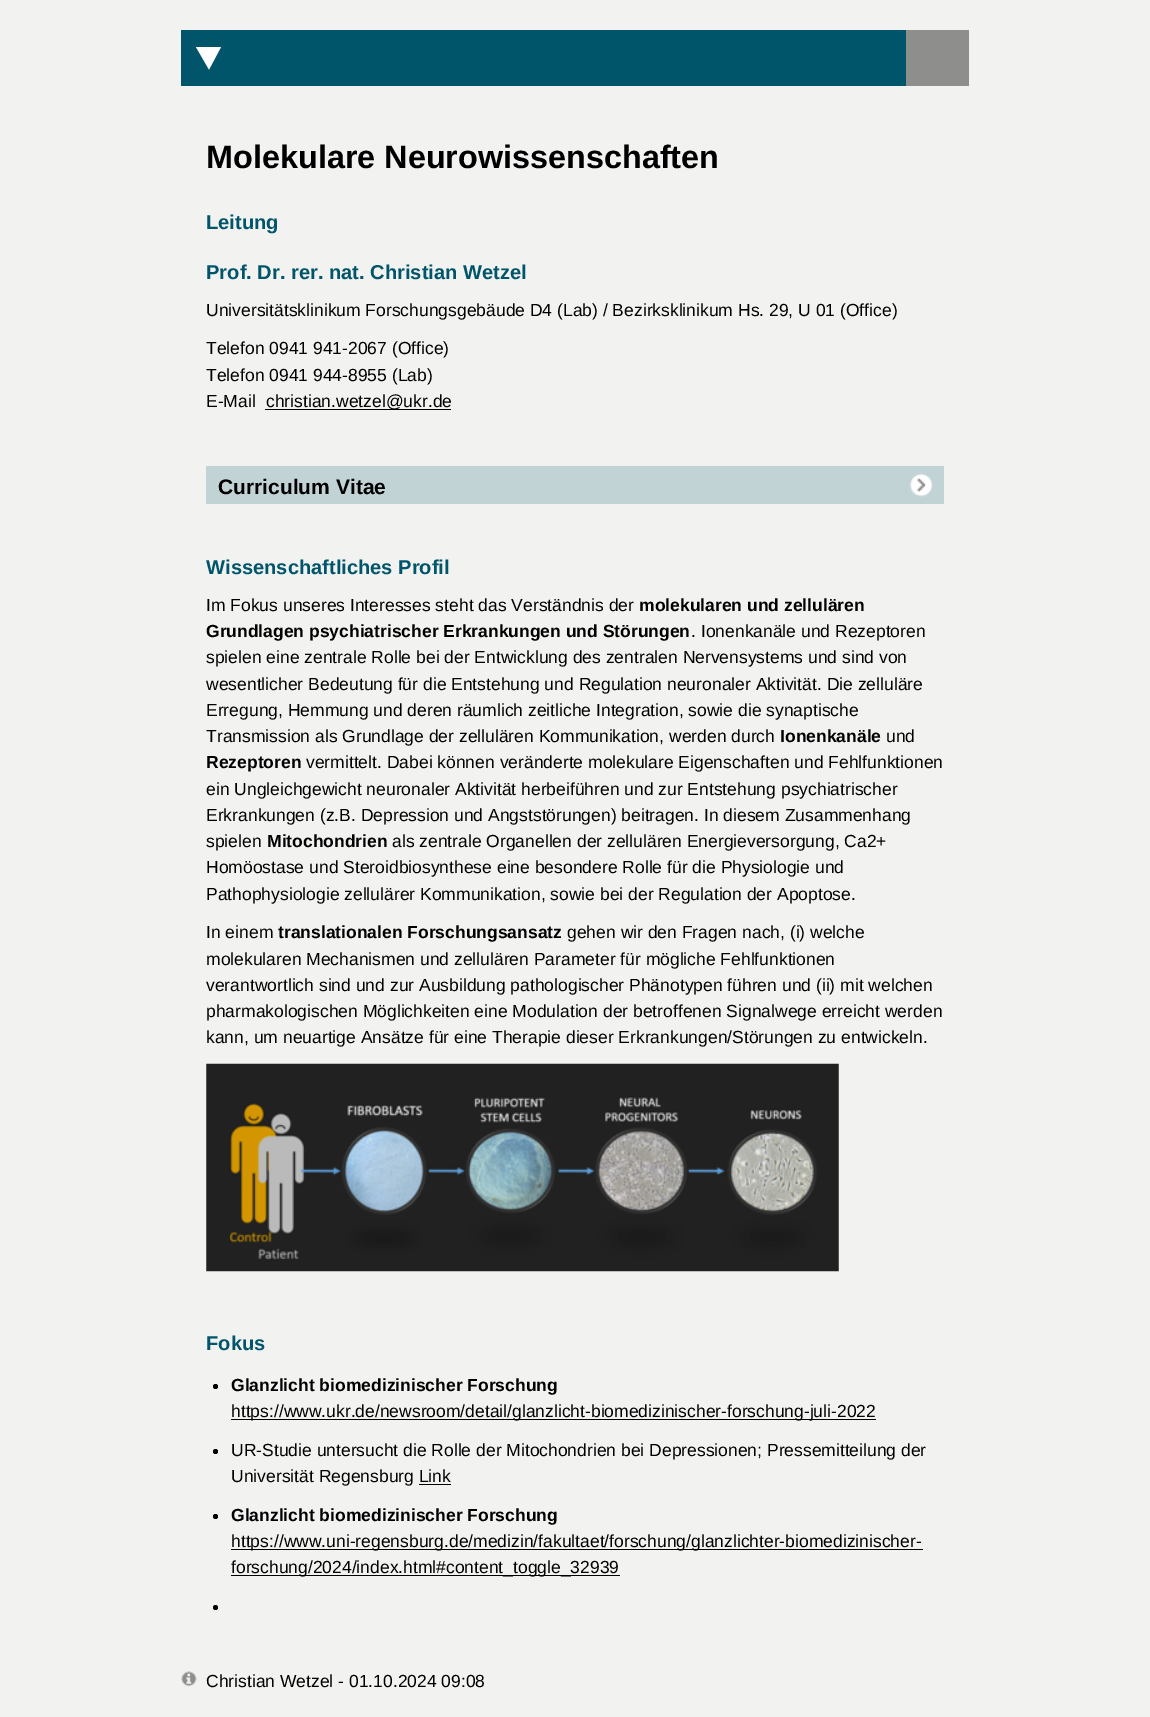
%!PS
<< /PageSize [1150 1717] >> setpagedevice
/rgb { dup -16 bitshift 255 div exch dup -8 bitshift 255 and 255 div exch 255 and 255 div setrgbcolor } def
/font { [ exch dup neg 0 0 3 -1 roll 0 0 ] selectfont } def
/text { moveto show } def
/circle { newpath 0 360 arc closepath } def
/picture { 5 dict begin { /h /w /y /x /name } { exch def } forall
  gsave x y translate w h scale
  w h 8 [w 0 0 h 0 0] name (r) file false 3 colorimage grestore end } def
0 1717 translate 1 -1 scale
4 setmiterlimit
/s1 { /LiberationSans-Bold 32.4 font 16#000000 rgb } def
/s2 { /LiberationSans-Bold 20.1 font 16#00556A rgb } def
/s3 { /LiberationSans-Regular 17.5 font 16#000000 rgb } def
/s4 { /LiberationSans-Bold 21 font 16#000000 rgb } def
/s5 { /LiberationSans-Bold 17.5 font 16#000000 rgb } def
16#F2F2F1 rgb
0 0 1150 1717 rectfill
16#00556A rgb
181 30 725 56 rectfill
16#FFFFFF rgb
221 47 moveto 196 47 lineto 209 69.5 lineto closepath fill
16#8E8E8D rgb
906 30 63 56 rectfill
s1
(Molekulare Neurowissenschaften) 206 168 text
s2
(Leitung) 206 229 text
(Prof. Dr. rer. nat. Christian Wetzel) 206 279 text
s3
(Universitätsklinikum Forschungsgebäude D4 \(Lab\) / Bezirksklinikum Hs. 29, U 01 \(Office\)) 206 316 text
(Telefon 0941 941-2067 \(Office\)) 206 354 text
(Telefon 0941 944-8955 \(Lab\)) 206 381 text
(E-Mail) 206 407 text
265 409 186 1 rectfill
(christian.wetzel@ukr.de) 266 407 text
16#C2D3D6 rgb
206 466 738 38 rectfill
s4
(Curriculum Vitae) 218 494 text
(pic1.raw) 910 473 23 24 picture
s2
(Wissenschaftliches Profil) 206 574 text
s3
(Im Fokus unseres Interesses steht das Verständnis der) 206 611 text
s5
(molekularen und zellulären) 639 611 text
(Grundlagen psychiatrischer Erkrankungen und Störungen) 206 637 text
s3
(. Ionenkanäle und Rezeptoren) 691 637 text
(spielen eine zentrale Rolle bei der Entwicklung des zentralen Nervensystems und sind von) 206 663 text
(wesentlicher Bedeutung für die Entstehung und Regulation neuronaler Aktivität. Die zelluläre) 206 690 text
(Erregung, Hemmung und deren räumlich zeitliche Integration, sowie die synaptische) 206 716 text
(Transmission als Grundlage der zellulären Kommunikation, werden durch) 206 742 text
s5
(Ionenkanäle) 780 742 text
s3
(und) 886 742 text
s5
(Rezeptoren) 206 768 text
s3
(vermittelt. Dabei können veränderte molekulare Eigenschaften und Fehlfunktionen) 306 768 text
(ein Ungleichgewicht neuronaler Aktivität herbeiführen und zur Entstehung psychiatrischer) 206 795 text
(Erkrankungen \(z.B. Depression und Angststörungen\) beitragen. In diesem Zusammenhang) 206 821 text
(spielen) 206 847 text
s5
(Mitochondrien) 267 847 text
s3
(als zentrale Organellen der zellulären Energieversorgung, Ca2+) 392 847 text
(Homöostase und Steroidbiosynthese eine besondere Rolle für die Physiologie und) 206 873 text
(Pathophysiologie zellulärer Kommunikation, sowie bei der Regulation der Apoptose.) 206 900 text
(In einem) 206 938 text
s5
(translationalen Forschungsansatz) 278 938 text
s3
(gehen wir den Fragen nach, \(i\) welche) 567 938 text
(molekularen Mechanismen und zellulären Parameter für mögliche Fehlfunktionen) 206 965 text
(verantwortlich sind und zur Ausbildung pathologischer Phänotypen führen und \(ii\) mit welchen) 206 991 text
(pharmakologischen Möglichkeiten eine Modulation der betroffenen Signalwege erreicht werden) 206 1017 text
(kann, um neuartige Ansätze für eine Therapie dieser Erkrankungen/Störungen zu entwickeln.) 206 1043 text
(pic2.raw) 206 1063 633 209 picture
s2
(Fokus) 206 1350 text
16#000000 rgb
215.5 1386.5 2.5 circle fill
s5
(Glanzlicht biomedizinischer Forschung) 231 1391 text
231 1419 645 1 rectfill
s3
(https://www.ukr.de/newsroom/detail/glanzlicht-biomedizinischer-forschung-juli-2022) 231 1417 text
215.5 1451.5 2.5 circle fill
(UR-Studie untersucht die Rolle der Mitochondrien bei Depressionen; Pressemitteilung der) 231 1456 text
(Universität Regensburg Link) 231 1482 text
419 1484 32 1 rectfill
215.5 1516.5 2.5 circle fill
s5
(Glanzlicht biomedizinischer Forschung) 231 1521 text
231 1549 692 1 rectfill
s3
(https://www.uni-regensburg.de/medizin/fakultaet/forschung/glanzlichter-biomedizinischer-) 231 1547 text
231 1575 389 1 rectfill
(forschung/2024/index.html#content_toggle_32939) 231 1573 text
215.5 1607.5 2.5 circle fill
(pic3.raw) 181 1671 16 16 picture
(Christian Wetzel - 01.10.2024 09:08) 206 1687 text
showpage
